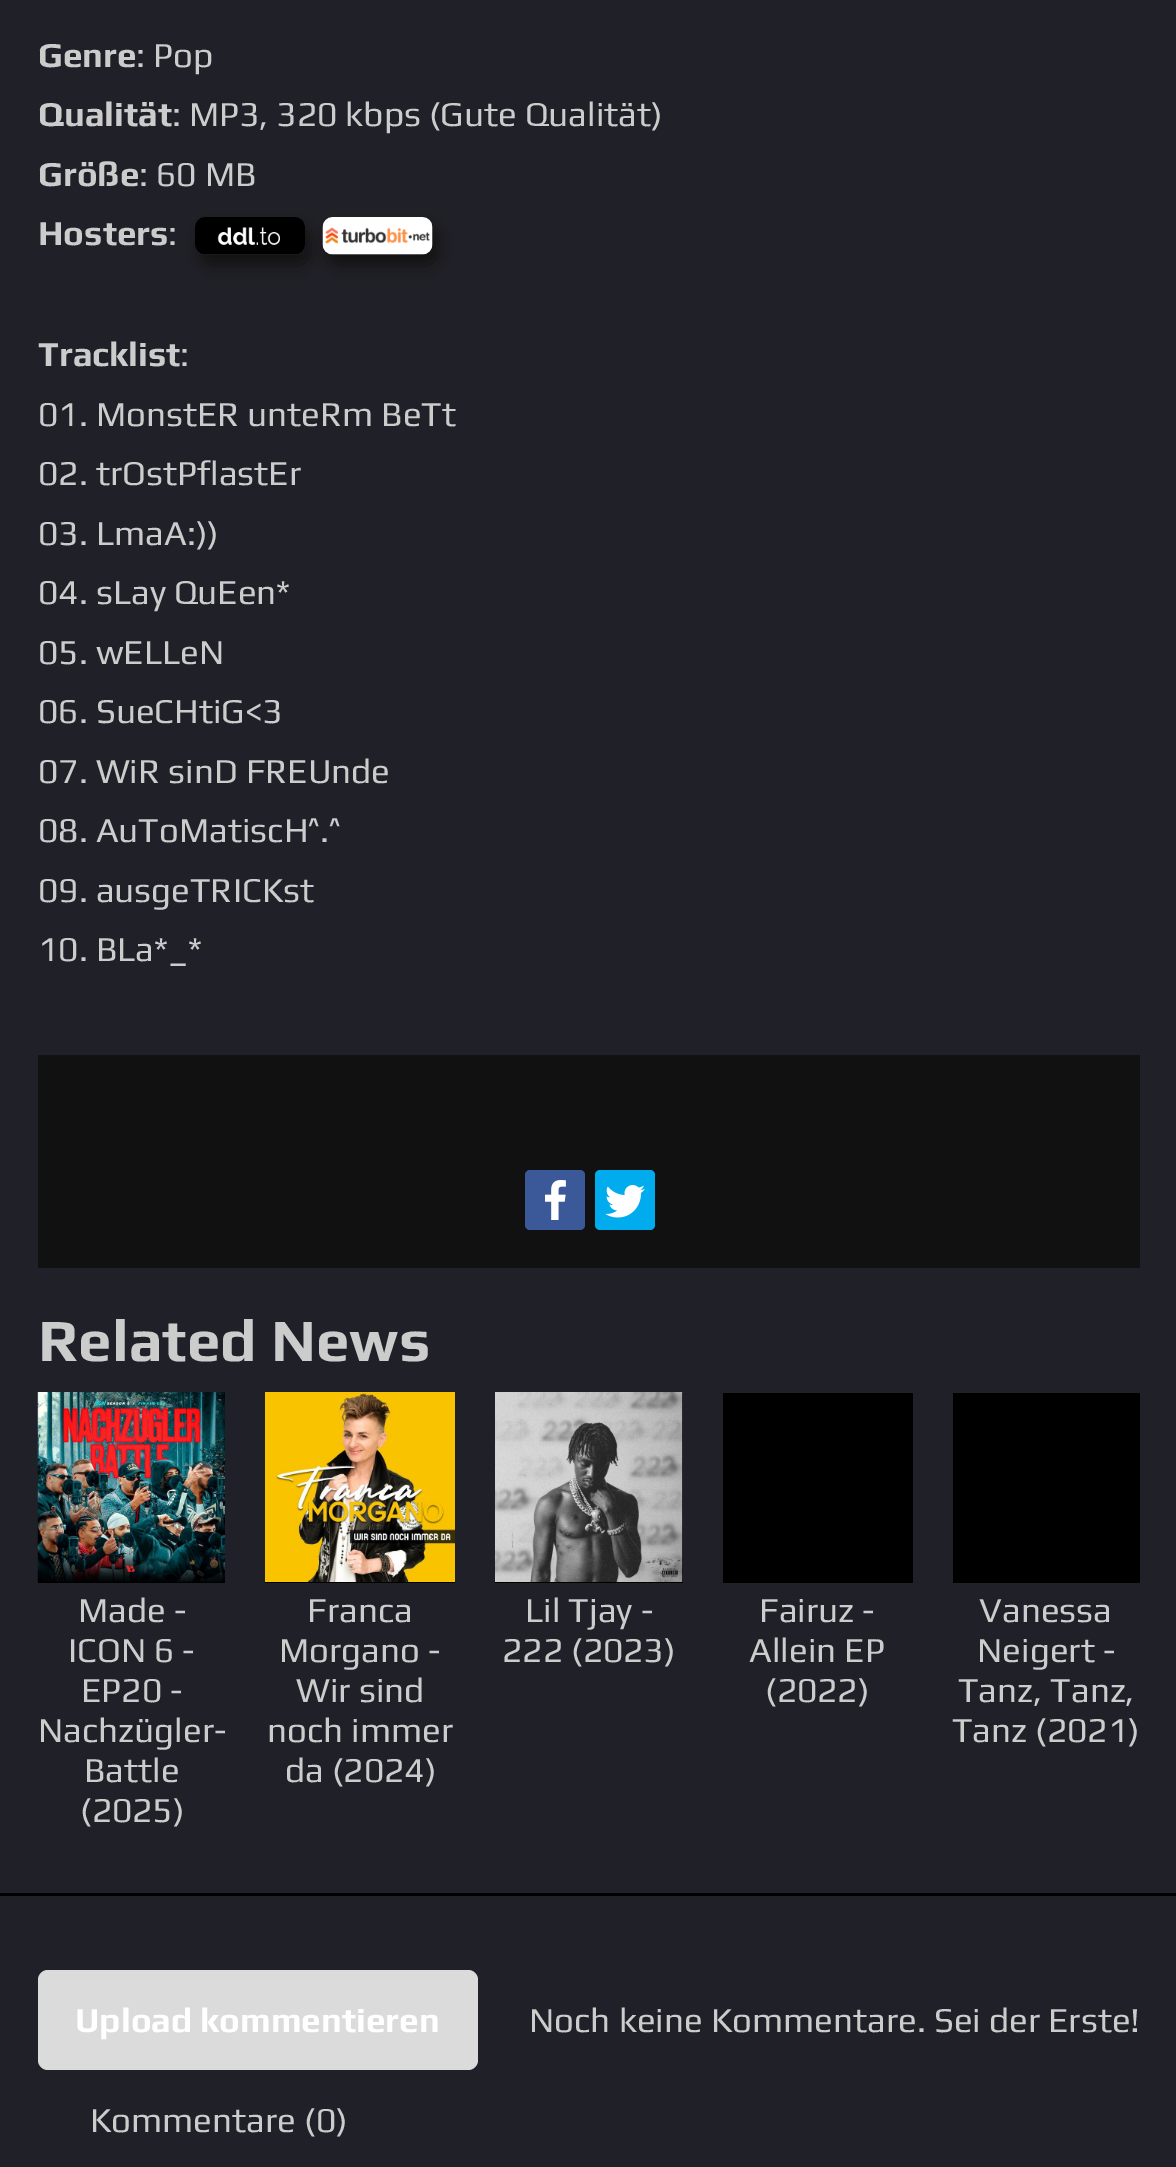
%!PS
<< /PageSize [1176 2167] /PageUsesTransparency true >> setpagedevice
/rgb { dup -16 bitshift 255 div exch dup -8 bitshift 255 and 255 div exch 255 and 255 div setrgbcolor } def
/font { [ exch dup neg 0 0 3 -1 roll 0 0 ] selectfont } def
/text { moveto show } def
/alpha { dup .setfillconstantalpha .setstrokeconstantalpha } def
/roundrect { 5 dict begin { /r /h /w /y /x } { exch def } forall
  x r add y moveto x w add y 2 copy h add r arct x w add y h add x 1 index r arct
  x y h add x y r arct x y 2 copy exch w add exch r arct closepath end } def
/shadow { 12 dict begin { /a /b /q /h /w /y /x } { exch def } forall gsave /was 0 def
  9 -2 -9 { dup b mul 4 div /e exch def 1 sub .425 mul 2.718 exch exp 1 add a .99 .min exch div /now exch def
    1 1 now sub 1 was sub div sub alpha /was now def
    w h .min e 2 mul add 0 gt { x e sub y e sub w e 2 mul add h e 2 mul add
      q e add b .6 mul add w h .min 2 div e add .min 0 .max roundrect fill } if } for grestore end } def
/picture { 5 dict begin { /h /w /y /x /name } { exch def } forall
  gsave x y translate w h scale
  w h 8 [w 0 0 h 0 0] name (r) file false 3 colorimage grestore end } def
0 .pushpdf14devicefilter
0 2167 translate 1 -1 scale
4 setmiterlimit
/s1 { /Play-Bold 35 font 16#CCCCCC rgb } def
/s2 { /Play-Regular 35 font 16#CCCCCC rgb } def
/s3 { /Play-Bold 60 font 16#CCCCCC rgb } def
/s4 { /Play-Bold 35 font 16#FFFFFF rgb } def
16#202128 rgb
0 0 1176 2167 rectfill
s1
(Genre) 38 67 text
s2
(: Pop) 136 67 text
s1
(Qualität) 38 126 text
s2
(: MP3, 320 kbps \(Gute Qualität\)) 172 126 text
s1
(Größe) 38 186 text
s2
(: 60 MB) 139 186 text
16#111111 rgb
200 228 110 37 10 9 1 shadow
(pic1.raw) 195 217 110 38 picture
328 228 110 37 10 9 1 shadow
s1
(Hosters) 38 245 text
s2
(:) 168 245 text
(pic2.raw) 322 217 111 38 picture
s1
(Tracklist) 38 366 text
s2
(:) 180 366 text
(01. MonstER unteRm BeTt) 38 426 text
(02. trOstPflastEr) 38 485 text
(03. LmaA:\)\)) 38 545 text
(04. sLay QuEen*) 38 604 text
(05. wELLeN) 38 664 text
(06. SueCHtiG<3) 38 723 text
(07. WiR sinD FREUnde) 38 783 text
(08. AuToMatiscH^.^) 38 842 text
(09. ausgeTRICKst) 38 902 text
(10. BLa*_*) 38 961 text
16#111111 rgb
38 1055 1102 213 rectfill
16#3B5998 rgb
525 1170 60 60 5 roundrect fill
(pic3.raw) 545 1180 21 40 picture
16#00ACED rgb
595 1170 60 60 5 roundrect fill
(pic4.raw) 605 1185 40 33 picture
s3
(Related News) 38 1361 text
16#000000 rgb
38 1582 187 1 rectfill
(pic5.raw) 37 1392 188 190 picture
s2
(Made -) 78 1622 text
(ICON 6 -) 68 1662 text
(EP20 -) 81 1702 text
(Nachzügler-) 38 1742 text
(Battle) 84 1782 text
(\(2025\)) 80 1822 text
16#000000 rgb
265 1582 190 1 rectfill
(pic6.raw) 265 1392 190 190 picture
s2
(Franca) 307 1622 text
(Morgano -) 279 1662 text
(Wir sind) 296 1702 text
(noch immer) 267 1742 text
(da \(2024\)) 285 1782 text
16#000000 rgb
495 1393 188 190 rectfill
(pic7.raw) 495 1392 188 190 picture
s2
(Lil Tjay -) 525 1622 text
(222 \(2023\)) 502 1662 text
16#000000 rgb
723 1393 190 190 rectfill
s2
(Fairuz -) 759 1622 text
(Allein EP) 749 1662 text
(\(2022\)) 765 1702 text
16#000000 rgb
953 1393 187 190 rectfill
s2
(Vanessa) 979 1622 text
(Neigert -) 977 1662 text
(Tanz, Tanz,) 958 1702 text
(Tanz \(2021\)) 952 1742 text
16#000000 rgb
0 1893 1176 3 rectfill
16#DBDBDB rgb
38 1970 440 100 10 roundrect fill
s4
(Upload kommentieren) 75 2032 text
s2
(Noch keine Kommentare. Sei der Erste!) 529 2032 text
(Kommentare \(0\)) 90 2132 text
.poppdf14devicefilter showpage
